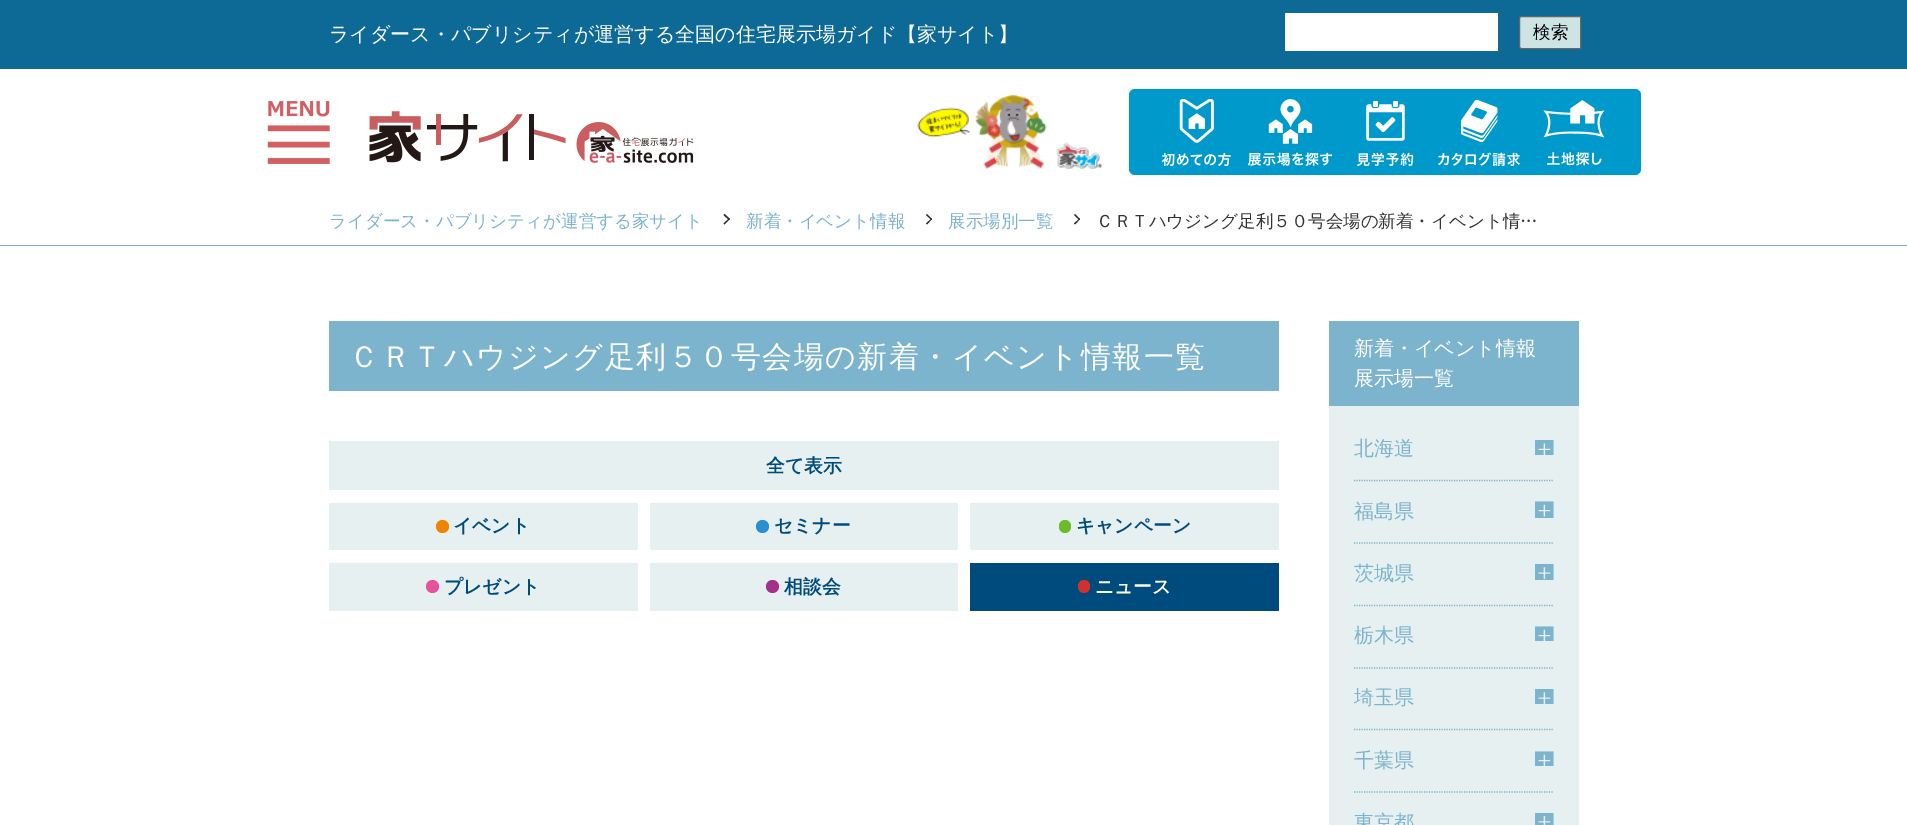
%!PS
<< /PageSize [1907 825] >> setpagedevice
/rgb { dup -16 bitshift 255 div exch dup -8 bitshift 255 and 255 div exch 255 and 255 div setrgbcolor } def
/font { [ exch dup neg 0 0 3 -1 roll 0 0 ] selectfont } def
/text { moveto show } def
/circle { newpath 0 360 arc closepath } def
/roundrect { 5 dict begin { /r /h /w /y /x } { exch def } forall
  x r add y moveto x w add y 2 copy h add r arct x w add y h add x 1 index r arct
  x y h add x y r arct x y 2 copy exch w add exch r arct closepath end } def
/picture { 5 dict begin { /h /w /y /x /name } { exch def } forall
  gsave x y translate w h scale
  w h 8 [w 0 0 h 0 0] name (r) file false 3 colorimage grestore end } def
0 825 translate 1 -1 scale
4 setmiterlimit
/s1 { /WenQuanYiZenHei-Medium 20 font 16#FFFFFF rgb } def
/s2 { /WenQuanYiZenHei-Medium 17.5 font 16#000000 rgb } def
/s3 { /WenQuanYiZenHei-Medium 17.5 font 16#7DB4CD rgb } def
/s4 { /WenQuanYiZenHei-Medium 17.5 font 16#333333 rgb } def
/s5 { /WenQuanYiZenHei-Bold 18.75 font 16#004B7D rgb } def
/s6 { /WenQuanYiZenHei-Bold 18.75 font 16#FFFFFF rgb } def
/s7 { /WenQuanYiZenHei-Medium 20 font 16#7DB4CD rgb } def
16#FFFFFF rgb
0 0 1907 825 rectfill
16#0D6A97 rgb
0 0 1907 69 rectfill
s1
(ライダース・パブリシティが運営する全国の住宅展示場ガイド【家サイト】) 329 41 text
1285 13 213 38 rectfill
16#CEE4E3 rgb
1521.5 16.5 moveto 1580.5 16.5 lineto 1580.5 48.5 lineto 1521.5 48.5 lineto 1520.5 48.5 1519.5 47.5 1519.5 46.5 curveto 1519.5 18.5 lineto 1519.5 17.5 1520.5 16.5 1521.5 16.5 curveto closepath gsave fill grestore
16#666666 rgb
stroke
s2
(検索) 1533 38 text
(pic1.raw) 267 101 63 63 picture
(pic2.raw) 369 111 325 52 picture
(pic3.raw) 917 94 186 75 picture
16#0099CC rgb
1129 89 512 86 6 roundrect fill
(pic4.raw) 1161 99 70 67 picture
(pic5.raw) 1248 99 85 67 picture
(pic6.raw) 1357 101 57 65 picture
(pic7.raw) 1438 99 82 67 picture
(pic8.raw) 1543 100 62 66 picture
16#7DB4CD rgb
0 245 1907 1 rectfill
(ライダース・パブリシティが運営する家サイト) 329 227 text
16#2A2A2A rgb
723.5 215 moveto 724.5 214 lineto 730 219 lineto 729 220 lineto closepath fill
723.5 223.5 moveto 729 218.5 lineto 730 219 lineto 724.5 224.5 lineto closepath fill
s3
(新着・イベント情報) 746 227 text
16#2A2A2A rgb
926 215 moveto 927 214 lineto 932 219 lineto 931.5 220 lineto closepath fill
926 223.5 moveto 931.5 218.5 lineto 932 219 lineto 927 224.5 lineto closepath fill
s3
(展示場別一覧) 948 227 text
16#2A2A2A rgb
1074 215 moveto 1075 214 lineto 1080 219 lineto 1079.5 220 lineto closepath fill
1074 223.5 moveto 1079.5 218.5 lineto 1080 219 lineto 1075 224.5 lineto closepath fill
s4
(ＣＲＴハウジング足利５０号会場の新着・イベント情…) 1096 227 text
16#7DB4CD rgb
329 321 950 70 rectfill
/WenQuanYiZenHei-Medium 30 font
16#FFFFFF rgb
349 367 moveto 1.5 0 (ＣＲＴハウジング足利５０号会場の新着・イベント情報一覧) ashow
16#E6F0F0 rgb
329 441 950 49 rectfill
s5
(全て表示) 766 472 text
16#E6F0F0 rgb
329 503 309 47 rectfill
16#F08300 rgb
442.5 526.5 6.5 circle fill
s5
(イベント) 453 532 text
16#E6F0F0 rgb
650 503 308 47 rectfill
16#2990D0 rgb
762.5 526.5 6.5 circle fill
s5
(セミナー) 774 532 text
16#E6F0F0 rgb
970 503 309 47 rectfill
16#6FBA2C rgb
1059 520 12 13 6 roundrect fill
s5
(キャンペーン) 1076 532 text
16#E6F0F0 rgb
329 563 309 48 rectfill
16#E85298 rgb
432.5 586.5 6.5 circle fill
s5
(プレゼント) 444 593 text
16#E6F0F0 rgb
650 563 308 48 rectfill
16#A5308C rgb
772.5 586.5 6.5 circle fill
s5
(相談会) 784 593 text
970 563 309 48 rectfill
16#D42F2F rgb
1078 580 12 13 6 roundrect fill
s6
(ニュース) 1095 593 text
16#E6F0F0 rgb
1329 406 250 419 rectfill
16#7DB4CD rgb
1329 321 250 85 rectfill
s1
(新着・イベント情報) 1354 355 text
(展示場一覧) 1354 385 text
16#7DB4CD rgb
1.2 setlinewidth
[1.25 1.25] 0 setdash
1354 480.5 moveto 1554 480.5 lineto stroke
(北海道) 1354 455 text
(pic9.raw) 1535 440 19 15 picture
1354 543 moveto 1554 543 lineto stroke
(福島県) 1354 518 text
(pic10.raw) 1535 501 19 17 picture
1354 605.5 moveto 1554 605.5 lineto stroke
(茨城県) 1354 580 text
(pic11.raw) 1535 564 19 16 picture
1354 668 moveto 1554 668 lineto stroke
(栃木県) 1354 642 text
(pic12.raw) 1535 626 19 15 picture
1354 729.5 moveto 1554 729.5 lineto stroke
(埼玉県) 1354 704 text
(pic13.raw) 1535 689 19 15 picture
1354 792 moveto 1554 792 lineto stroke
(千葉県) 1354 767 text
(pic12.raw) 1535 751 19 15 picture
(東京都) 1354 829 text
(pic14.raw) 1535 813 19 12 picture
showpage
